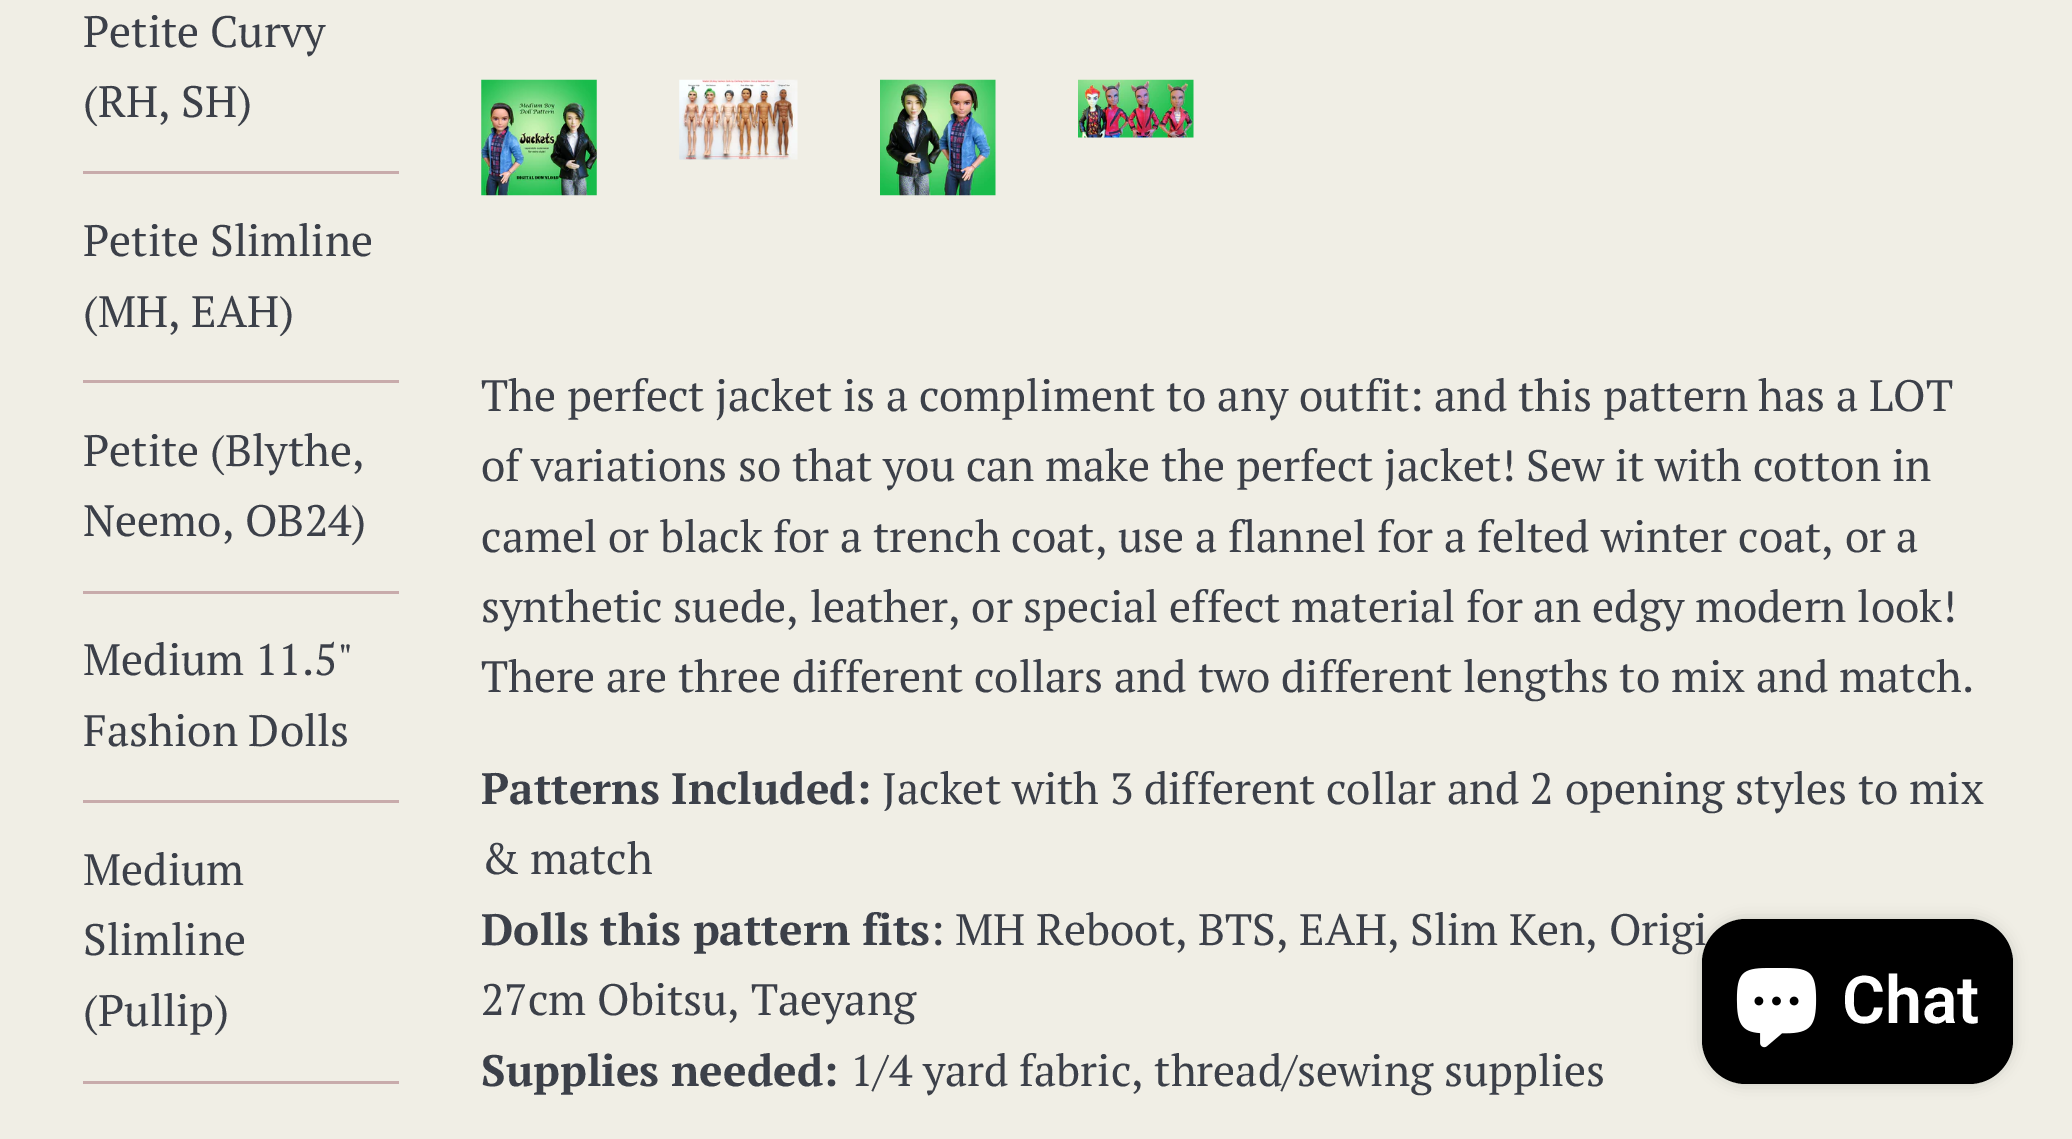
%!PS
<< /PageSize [2072 1139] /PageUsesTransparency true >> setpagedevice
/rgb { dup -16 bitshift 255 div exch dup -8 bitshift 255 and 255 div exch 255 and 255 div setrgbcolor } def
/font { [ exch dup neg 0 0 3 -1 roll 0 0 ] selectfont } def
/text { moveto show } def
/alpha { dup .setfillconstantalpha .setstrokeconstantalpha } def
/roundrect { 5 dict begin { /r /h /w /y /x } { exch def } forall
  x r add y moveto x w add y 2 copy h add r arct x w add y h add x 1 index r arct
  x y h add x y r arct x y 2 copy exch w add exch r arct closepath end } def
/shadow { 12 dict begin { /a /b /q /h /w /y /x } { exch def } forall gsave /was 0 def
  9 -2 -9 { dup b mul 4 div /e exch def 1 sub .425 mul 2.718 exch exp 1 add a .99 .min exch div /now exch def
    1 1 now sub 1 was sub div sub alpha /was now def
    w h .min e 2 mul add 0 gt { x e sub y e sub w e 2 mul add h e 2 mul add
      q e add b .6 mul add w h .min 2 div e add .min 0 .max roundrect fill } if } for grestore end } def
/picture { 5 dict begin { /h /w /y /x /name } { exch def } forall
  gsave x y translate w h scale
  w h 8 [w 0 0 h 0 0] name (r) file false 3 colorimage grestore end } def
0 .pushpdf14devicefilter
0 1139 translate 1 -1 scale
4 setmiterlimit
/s1 { /PTSerif-Regular 44 font 16#3C4049 rgb } def
/s2 { /PTSerif-Bold 44 font 16#3C4049 rgb } def
/s3 { /Roboto-SemiBold 66 font 16#FFFFFF rgb } def
16#F0EEE5 rgb
0 0 2072 1139 rectfill
16#C8ABAB rgb
83 171 316 3 rectfill
s1
(Petite Curvy) 83 47 text
(\(RH, SH\)) 83 117 text
16#C8ABAB rgb
83 380 316 3 rectfill
s1
(Petite Slimline) 83 256 text
(\(MH, EAH\)) 83 327 text
16#C8ABAB rgb
83 591 316 3 rectfill
s1
(Petite \(Blythe,) 83 466 text
(Neemo, OB24\)) 83 536 text
16#C8ABAB rgb
83 800 316 3 rectfill
s1
(Medium 11.5") 83 675 text
(Fashion Dolls) 83 746 text
16#C8ABAB rgb
83 1081 316 3 rectfill
s1
(Medium) 83 885 text
(Slimline) 83 955 text
(\(Pullip\)) 83 1026 text
(pic1.raw) 481 79 116 117 picture
(pic2.raw) 679 79 119 81 picture
(pic3.raw) 880 79 116 117 picture
(pic4.raw) 1078 79 116 59 picture
(The perfect jacket is a compliment to any outfit: and this pattern has a LOT) 481 411 text
(of variations so that you can make the perfect jacket! Sew it with cotton in) 481 481 text
(camel or black for a trench coat, use a flannel for a felted winter coat, or a) 481 552 text
(synthetic suede, leather, or special effect material for an edgy modern look!) 481 622 text
(There are three different collars and two different lengths to mix and match.) 481 692 text
s2
(Patterns Included:) 481 804 text
s1
(Jacket with 3 different collar and 2 opening styles to mix) 882 804 text
(& match) 481 874 text
s2
(Dolls this pattern fits) 481 945 text
s1
(: MH Reboot, BTS, EAH, Slim Ken, Origi) 930 945 text
(27cm Obitsu, Taeyang) 481 1015 text
s2
(Supplies needed:) 481 1086 text
s1
(1/4 yard fabric, thread/sewing supplies) 850 1086 text
16#000000 rgb
1702 919 311 165 44 7 0.15 shadow
1702 919 311 165 44 roundrect fill
(pic5.raw) 1736 968 81 80 picture
s3
(Chat) 1842 1023 text
.poppdf14devicefilter showpage
